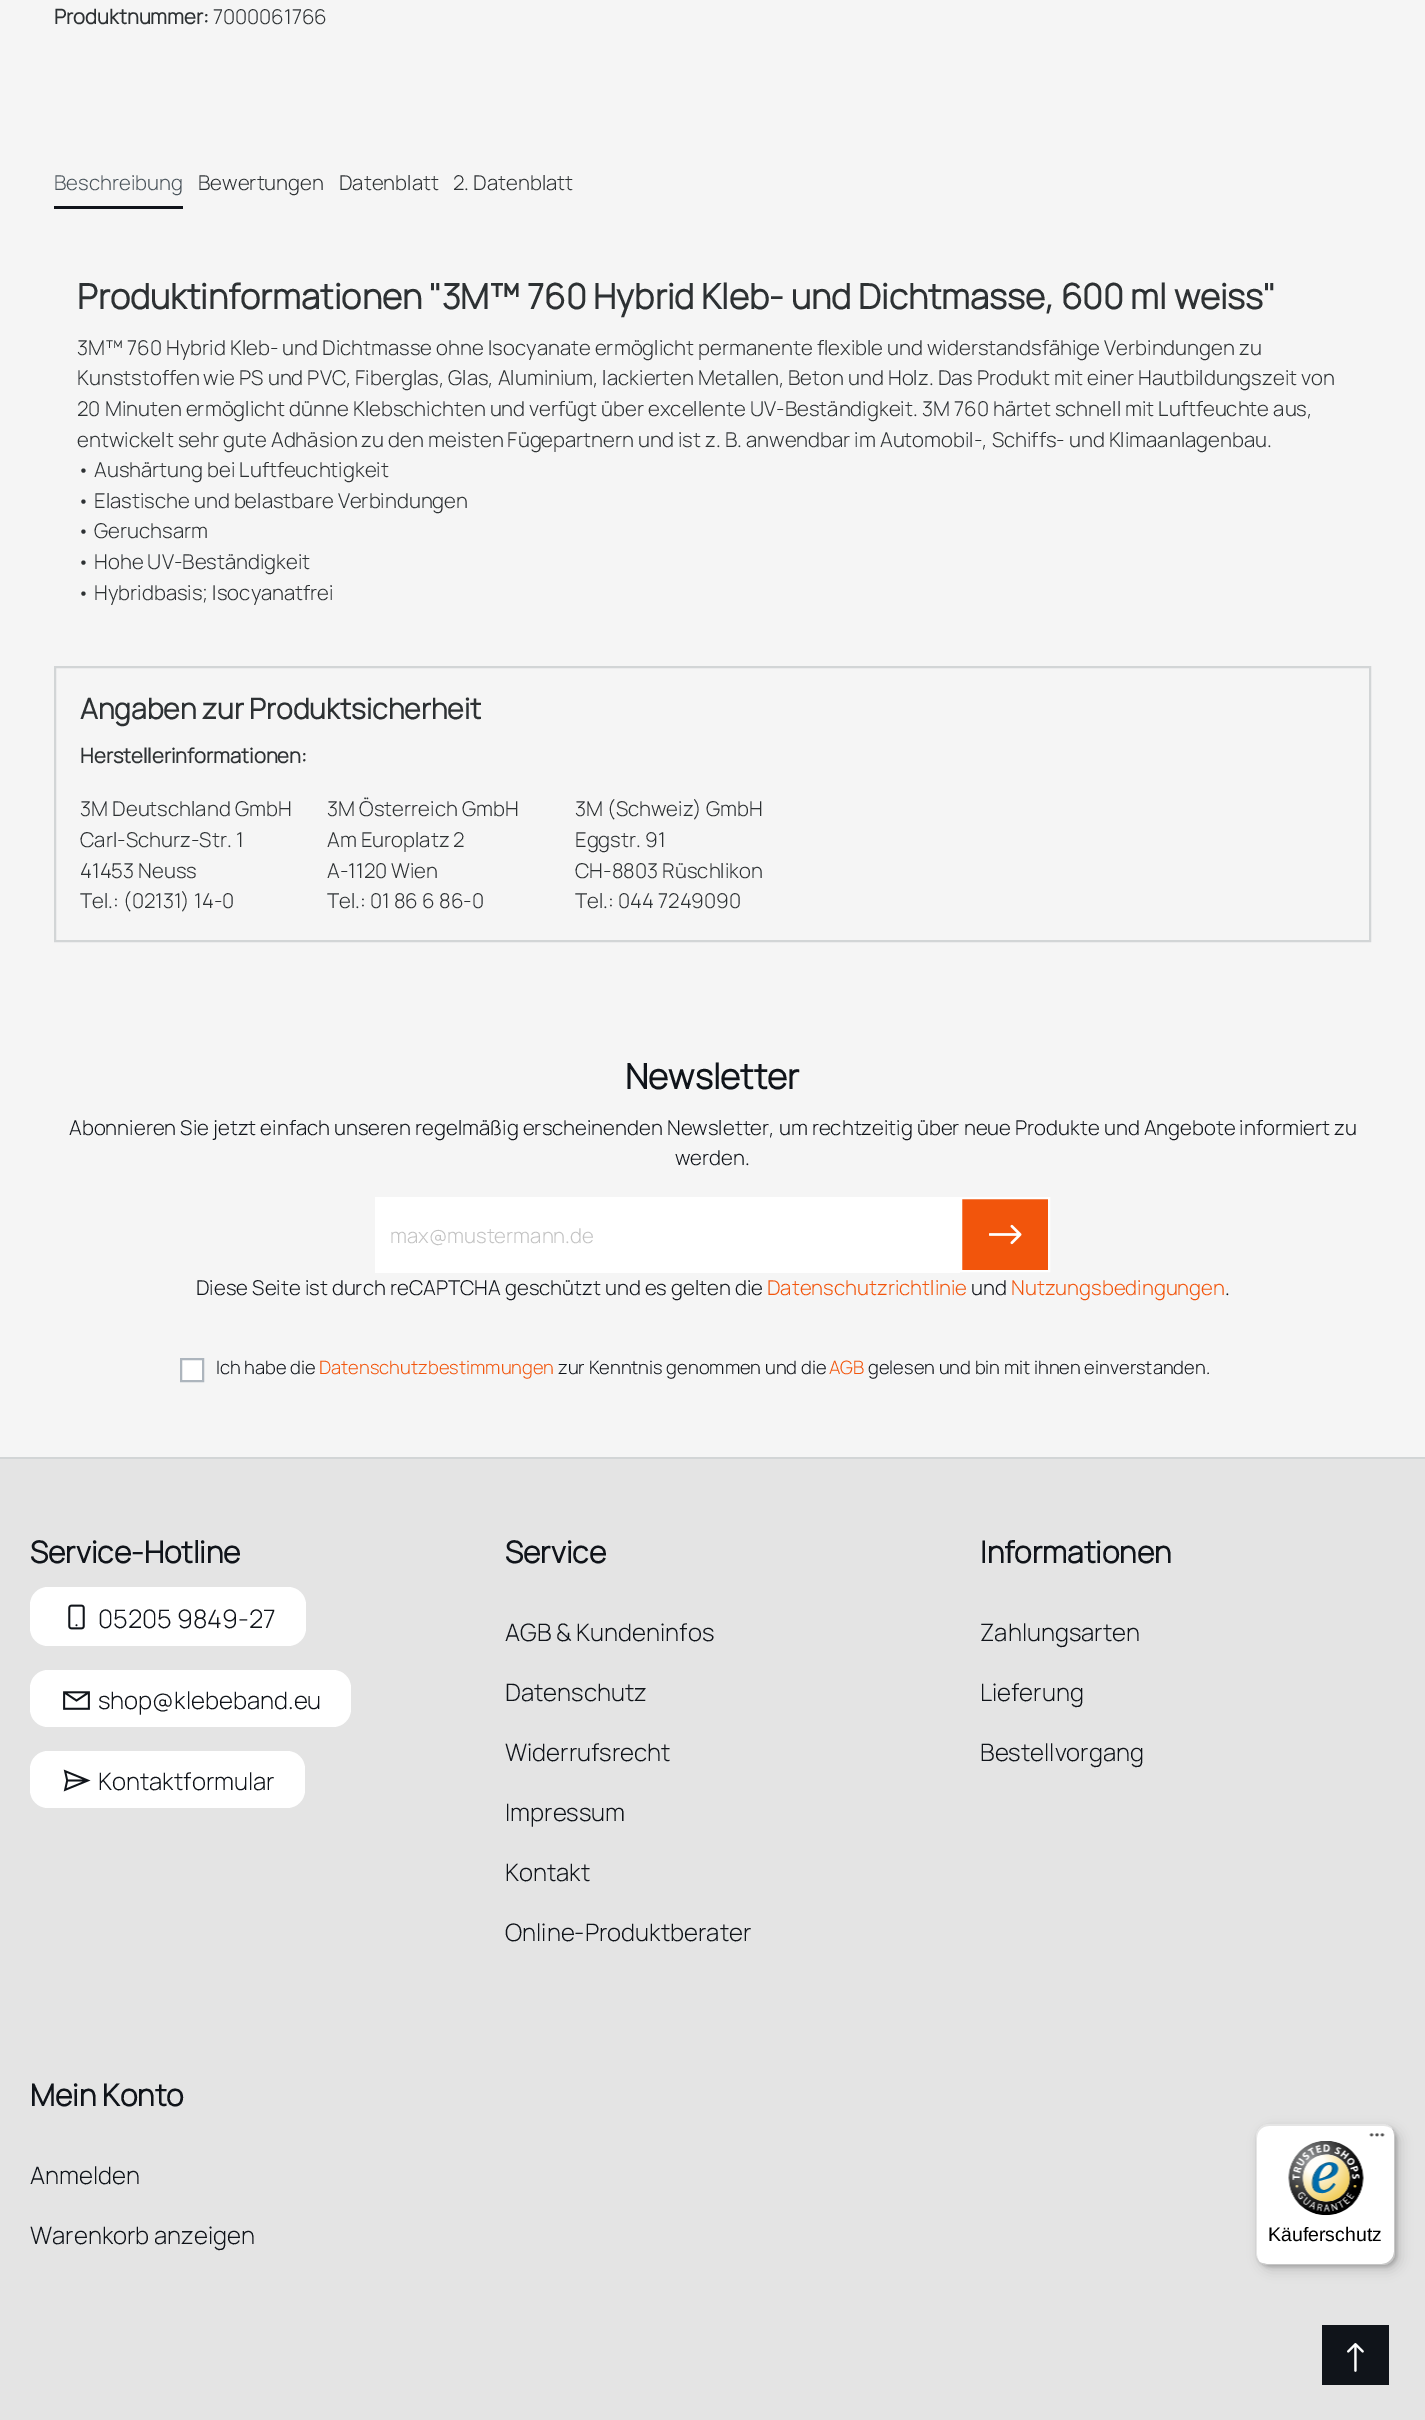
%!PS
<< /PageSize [1425 2420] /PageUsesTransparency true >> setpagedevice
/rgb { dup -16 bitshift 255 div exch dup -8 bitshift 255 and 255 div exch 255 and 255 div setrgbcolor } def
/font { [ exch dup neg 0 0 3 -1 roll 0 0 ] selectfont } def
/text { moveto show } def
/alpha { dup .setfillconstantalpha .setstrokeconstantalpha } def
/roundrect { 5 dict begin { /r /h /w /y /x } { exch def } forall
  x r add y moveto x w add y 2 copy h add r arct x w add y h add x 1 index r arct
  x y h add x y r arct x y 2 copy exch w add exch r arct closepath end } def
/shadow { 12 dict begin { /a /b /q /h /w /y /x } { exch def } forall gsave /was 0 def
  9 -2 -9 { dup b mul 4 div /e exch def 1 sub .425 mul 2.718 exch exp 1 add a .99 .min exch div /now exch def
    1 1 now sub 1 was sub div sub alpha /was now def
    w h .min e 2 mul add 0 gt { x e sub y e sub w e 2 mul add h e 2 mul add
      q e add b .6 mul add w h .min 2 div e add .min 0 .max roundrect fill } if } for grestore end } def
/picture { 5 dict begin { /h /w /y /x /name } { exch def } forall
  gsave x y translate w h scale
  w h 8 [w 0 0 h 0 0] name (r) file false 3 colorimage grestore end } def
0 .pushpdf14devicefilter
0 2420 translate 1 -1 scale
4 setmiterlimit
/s1 { /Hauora-Bold 20.4 font 16#2D3133 rgb } def
/s2 { /Hauora-Light 20.4 font 16#2D3133 rgb } def
/s3 { /Hauora-Light 20.4 font 16#4A545B rgb } def
/s4 { /Hauora-Bold 34.65 font 16#2D3133 rgb } def
/s5 { /Hauora-Bold 28.5 font 16#2D3133 rgb } def
/s6 { /Hauora-Bold 34.65 font 16#10141A rgb } def
/s7 { /Hauora-Light 20.4 font 16#10141A rgb } def
/s8 { /Hauora-Light 20.4 font 16#C3C3C3 rgb } def
/s9 { /Hauora-Light 20.4 font 16#F2550C rgb } def
/s10 { /Hauora-Light 18.4 font 16#10141A rgb } def
/s11 { /Hauora-Light 18.4 font 16#F2550C rgb } def
/s12 { /Hauora-Bold 30 font 16#10141A rgb } def
/s13 { /Hauora-Light 25.5 font 16#10141A rgb } def
/s14 { /Hauora-Light 24 font 16#10141A rgb } def
/s15 { /LiberationSans-Regular 19.5 font 16#000000 rgb } def
16#F5F5F5 rgb
0 0 1425 2420 rectfill
s1
(Produktnummer:) 54 24 text
s2
(7000061766) 213 24 text
16#10141A rgb
54 206 129 3 rectfill
s3
(Beschreibung) 54 190 text
s2
(Bewertungen) 198 190 text
(Datenblatt) 339 190 text
(2. Datenblatt) 453 190 text
s4
(Produktinformationen "3M™ 760 Hybrid Kleb- und Dichtmasse, 600 ml weiss") 77 309 text
s2
(3M™ 760 Hybrid Kleb- und Dichtmasse ohne Isocyanate ermöglicht permanente flexible und widerstandsfähige Verbindungen zu) 77 355 text
(Kunststoffen wie PS und PVC, Fiberglas, Glas, Aluminium, lackierten Metallen, Beton und Holz. Das Produkt mit einer Hautbildungszeit von) 77 385 text
(20 Minuten ermöglicht dünne Klebschichten und verfügt über excellente UV-Beständigkeit. 3M 760 härtet schnell mit Luftfeuchte aus,) 77 416 text
(entwickelt sehr gute Adhäsion zu den meisten Fügepartnern und ist z. B. anwendbar im Automobil-, Schiffs- und Klimaanlagenbau.) 77 447 text
(• Aushärtung bei Luftfeuchtigkeit) 77 477 text
(• Elastische und belastbare Verbindungen) 77 508 text
(• Geruchsarm) 77 538 text
(• Hohe UV-Beständigkeit) 77 569 text
(• Hybridbasis; Isocyanatfrei) 77 600 text
16#D2D5D6 rgb
2 setlinewidth
55 667 1315 274 rectstroke
s5
(Angaben zur Produktsicherheit) 80 719 text
s1
(Herstellerinformationen:) 80 763 text
s2
(3M Deutschland GmbH) 80 816 text
(Carl-Schurz-Str. 1) 80 847 text
(41453 Neuss) 80 878 text
(Tel.: \(02131\) 14-0) 80 908 text
(3M Österreich GmbH) 327 816 text
(Am Europlatz 2) 327 847 text
(A-1120 Wien) 327 878 text
(Tel.: 01 86 6 86-0) 327 908 text
(3M \(Schweiz\) GmbH) 575 816 text
(Eggstr. 91) 575 847 text
(CH-8803 Rüschlikon) 575 878 text
(Tel.: 044 7249090) 575 908 text
s6
(Newsletter) 625 1089 text
s7
(Abonnieren Sie jetzt einfach unseren regelmäßig erscheinenden Newsletter, um rechtzeitig über neue Produkte und Angebote informiert zu) 69 1135 text
(werden.) 675 1165 text
16#FFFFFF rgb
377 1199 583 72 rectfill
375 1197 585 2 rectfill
375 1271 585 2 rectfill
375 1197 2 75 rectfill
s8
(max@mustermann.de) 390 1243 text
16#F2550C rgb
961 1198 moveto 1049 1198 lineto 1049 1271 lineto 961 1271 lineto closepath gsave fill grestore
16#FFFFFF rgb
stroke
(pic1.raw) 989 1224 33 21 picture
s7
(Diese Seite ist durch reCAPTCHA geschützt und es gelten die) 196 1295 text
s9
(Datenschutzrichtlinie) 767 1295 text
s7
(und) 971 1295 text
s9
(Nutzungsbedingungen) 1011 1295 text
s7
(.) 1225 1295 text
16#FFFFFF rgb
181 1359 moveto 203 1359 lineto 203 1381 lineto 181 1381 lineto closepath gsave fill grestore
16#ADB5BD rgb
stroke
s10
(Ich habe die) 216 1374 text
s11
(Datenschutzbestimmungen) 319 1374 text
s10
(zur Kenntnis genommen und die) 558 1374 text
s11
(AGB) 829 1374 text
s10
(gelesen und bin mit ihnen einverstanden.) 868 1374 text
16#E4E4E4 rgb
0 1459 1425 961 rectfill
16#D2D5D6 rgb
0 1457 1425 2 rectfill
s12
(Service-Hotline) 30 1563 text
16#FFFFFF rgb
30 1587 276 59 18 roundrect fill
(pic2.raw) 68 1604 17 26 picture
s13
(05205 9849-27) 98 1628 text
16#FFFFFF rgb
30 1670 321 57 18 roundrect fill
(pic3.raw) 63 1691 27 19 picture
s14
(shop@klebeband.eu) 98 1709 text
16#FFFFFF rgb
30 1751 275 57 18 roundrect fill
(pic4.raw) 63 1769 28 23 picture
s14
(Kontaktformular) 98 1790 text
s12
(Service) 505 1563 text
s14
(AGB & Kundeninfos) 505 1641 text
(Datenschutz) 505 1701 text
(Widerrufsrecht) 505 1761 text
(Impressum) 505 1821 text
(Kontakt) 505 1881 text
(Online-Produktberater) 505 1941 text
s12
(Informationen) 980 1563 text
s14
(Zahlungsarten) 980 1641 text
(Lieferung) 980 1701 text
(Bestellvorgang) 980 1761 text
s12
(Mein Konto) 30 2106 text
s14
(Anmelden) 30 2184 text
(Warenkorb anzeigen) 30 2244 text
16#000000 rgb
1260 2129 140 141 12 6 0.15 shadow
1257 2126 140 141 12 1.5 0.15 shadow
16#FFFFFF rgb
1256 2124 139 141 12 roundrect fill
0.1 alpha
16#000000 rgb
1269 2126 moveto 1384 2126 lineto 1388 2126 1392 2128 1394 2131 curveto 1392 2127 1388 2124 1383 2124 curveto 1268 2124 lineto 1261 2124 1256 2129 1256 2136 curveto 1256 2253 lineto 1256 2256 1257 2259 1259 2261 curveto 1258 2259 1257 2257 1257 2254 curveto 1257 2138 lineto 1257 2131 1262 2126 1269 2126 curveto closepath fill
0.2 alpha
1262 2263 moveto 1263 2264 1266 2265 1268 2265 curveto 1383 2265 lineto 1390 2265 1395 2260 1395 2253 curveto 1395 2136 lineto 1395 2133 1394 2131 1392 2129 curveto 1393 2130 1394 2132 1394 2134 curveto 1394 2252 lineto 1394 2258 1388 2264 1382 2264 curveto 1266 2264 lineto closepath fill
16#323232 rgb
1260 2262 moveto 1262 2264 1265 2265 1268 2265 curveto 1383 2265 lineto 1390 2265 1395 2260 1395 2253 curveto 1395 2136 lineto 1395 2133 1394 2130 1392 2128 curveto 1393 2130 1394 2132 1394 2135 curveto 1394 2252 lineto 1394 2259 1389 2264 1382 2264 curveto 1267 2264 lineto 1264 2264 1262 2263 1260 2262 curveto closepath fill
0.3 alpha
16#FFFFFF rgb
1260 2262 moveto 1262 2264 1265 2265 1268 2265 curveto 1383 2265 lineto 1390 2265 1395 2260 1395 2253 curveto 1395 2136 lineto 1395 2132 1393 2129 1391 2127 curveto 1393 2129 1394 2132 1394 2135 curveto 1394 2252 lineto 1394 2259 1389 2264 1382 2264 curveto 1267 2264 lineto 1264 2264 1262 2263 1260 2262 curveto closepath fill
1 alpha
(pic5.raw) 1369 2133 16 4 picture
(pic6.raw) 1288 2141 76 75 picture
s15
(Käuferschutz) 1268 2241 text
16#10141A rgb
1322 2325 67 60 rectfill
(pic7.raw) 1347 2343 17 29 picture
.poppdf14devicefilter showpage
